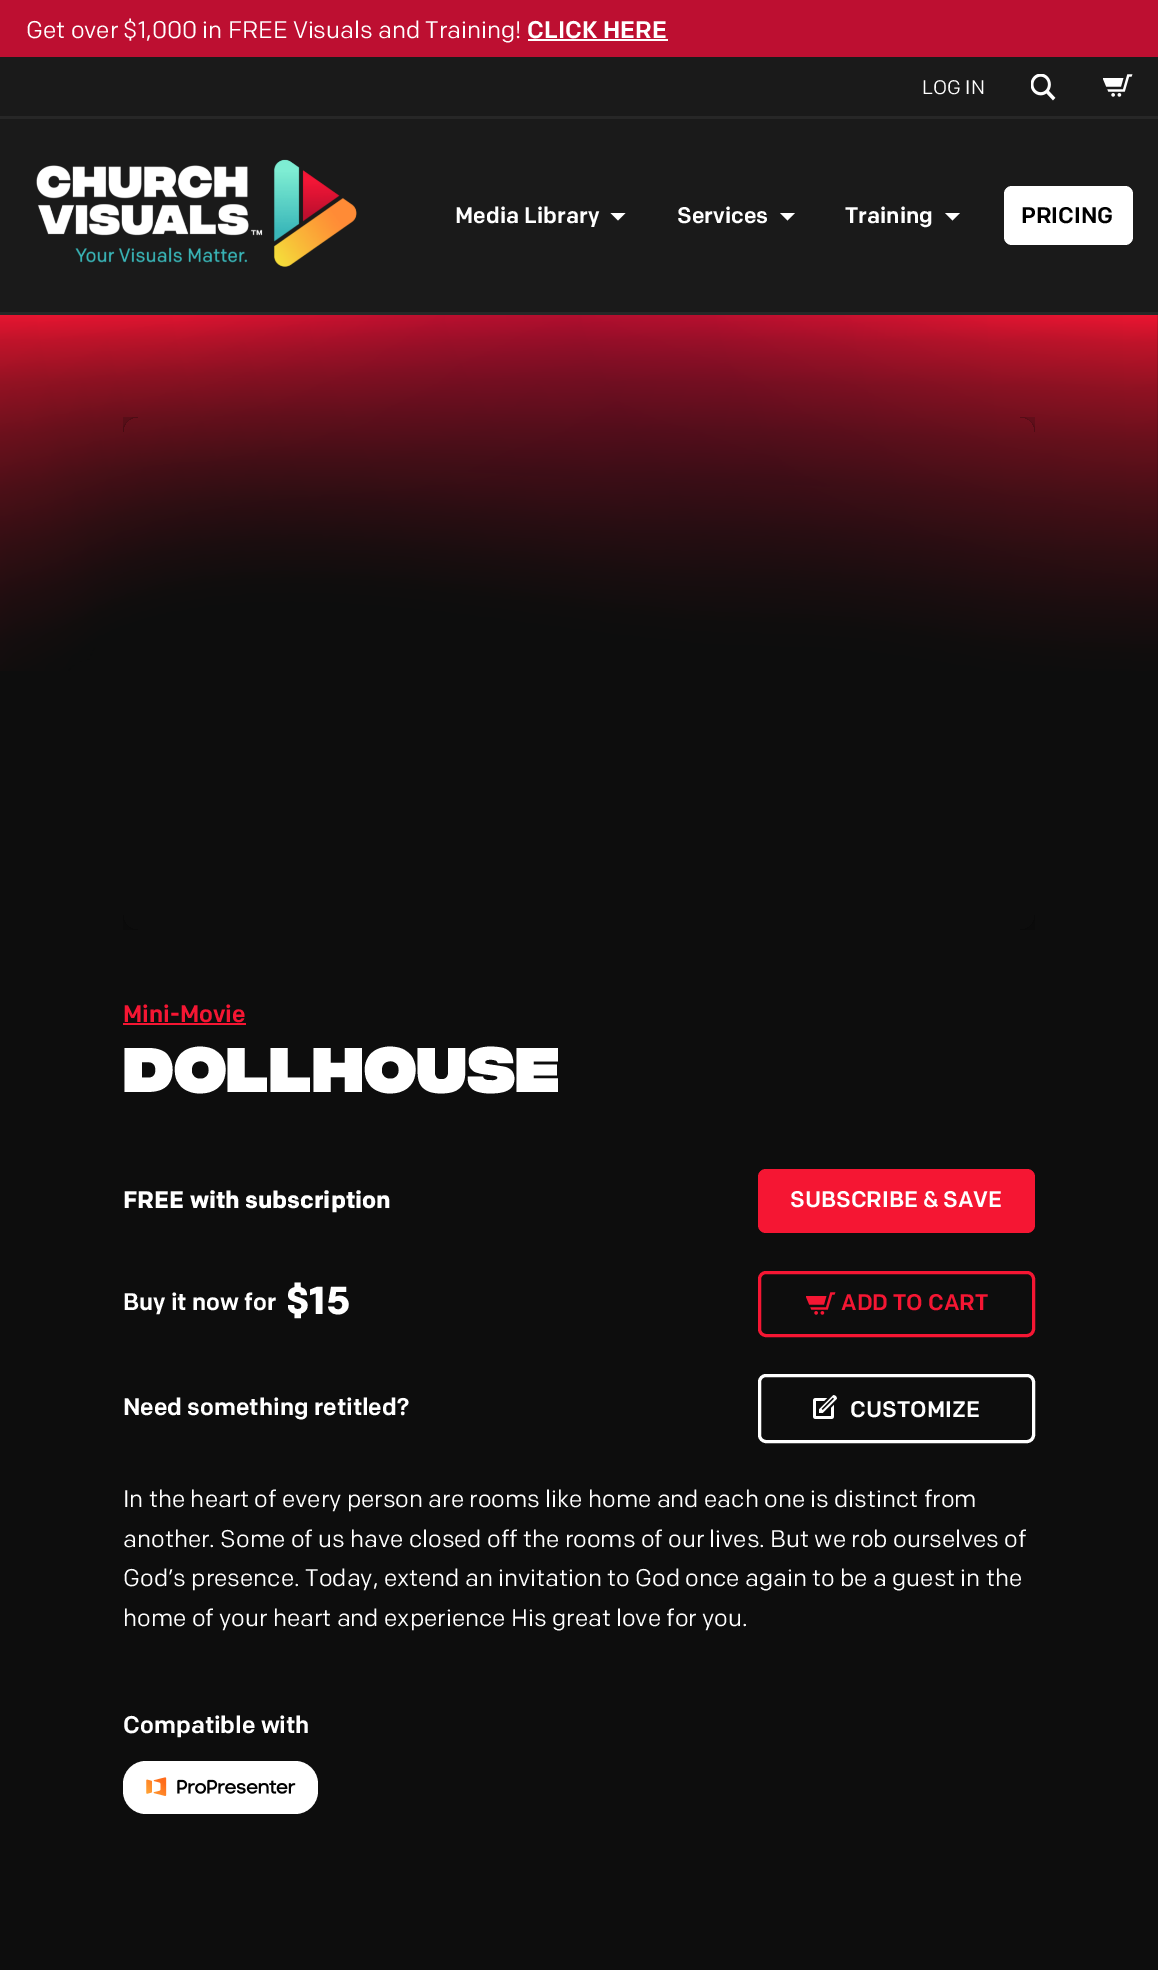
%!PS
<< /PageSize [1158 1970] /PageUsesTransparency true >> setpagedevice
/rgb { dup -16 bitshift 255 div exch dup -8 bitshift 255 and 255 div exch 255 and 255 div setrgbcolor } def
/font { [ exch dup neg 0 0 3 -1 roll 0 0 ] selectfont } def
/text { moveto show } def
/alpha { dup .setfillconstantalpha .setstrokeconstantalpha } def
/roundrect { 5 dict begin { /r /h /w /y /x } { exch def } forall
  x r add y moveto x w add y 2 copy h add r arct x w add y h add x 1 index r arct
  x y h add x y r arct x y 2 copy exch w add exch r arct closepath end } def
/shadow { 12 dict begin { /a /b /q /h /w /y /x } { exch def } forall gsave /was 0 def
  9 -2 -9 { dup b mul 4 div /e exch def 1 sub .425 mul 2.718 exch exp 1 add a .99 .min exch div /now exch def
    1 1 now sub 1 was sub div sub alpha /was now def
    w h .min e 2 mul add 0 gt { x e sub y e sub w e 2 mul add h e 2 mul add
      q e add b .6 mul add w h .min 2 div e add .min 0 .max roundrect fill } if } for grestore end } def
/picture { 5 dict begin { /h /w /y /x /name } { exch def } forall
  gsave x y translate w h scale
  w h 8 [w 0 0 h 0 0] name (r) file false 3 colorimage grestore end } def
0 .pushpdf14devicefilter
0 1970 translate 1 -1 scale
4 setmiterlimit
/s1 { /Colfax-Regular 24 font 16#FFFFFF rgb } def
/s2 { /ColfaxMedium-Medium 24 font 16#FFFFFF rgb } def
/s3 { /Colfax-Regular 19.5 font 16#FFFFFF rgb } def
/s4 { /ColfaxMedium-Medium 22.5 font 16#FFFFFF rgb } def
/s5 { /ColfaxMedium-Medium 22.5 font 16#000000 rgb } def
/s6 { /ColfaxMedium-Medium 24 font 16#F51633 rgb } def
/s7 { /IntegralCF-Black 63 font 16#FFFFFF rgb } def
/s8 { /Colfax-Bold 24 font 16#FFFFFF rgb } def
/s9 { /Colfax-Bold 39 font 16#FFFFFF rgb } def
/s10 { /ColfaxMedium-Medium 22.5 font 16#F51633 rgb } def
16#0D0D0D rgb
0 0 1158 1970 rectfill
16#BD0F31 rgb
0 0 1158 57 rectfill
s1
(Get over $1,000 in FREE Visuals and Training!) 26 38 text
s2
(CLICK HERE) 527 38 text
528 39 140 2 rectfill
16#1A1A1A rgb
0 57 1158 59 rectfill
16#272727 rgb
0 116 1158 3 rectfill
s3
(LOG IN) 922 94 text
(pic1.raw) 1031 74 25 27 picture
(pic2.raw) 1103 74 30 23 picture
16#1A1A1A rgb
0 119 1158 193 rectfill
16#272727 rgb
0 312 1158 3 rectfill
(pic3.raw) 36 159 321 108 picture
s4
(Media Library) 455 223 text
610.5 213 moveto 625.5 213 lineto 618 220.5 lineto closepath fill
(Services) 677 223 text
780 213 moveto 795 213 lineto 787.5 220.5 lineto closepath fill
(Training) 845 223 text
945 213 moveto 960 213 lineto 952.5 220.5 lineto closepath fill
1004 186 129 59 8 roundrect fill
s5
(PRICING) 1021 223 text
(pic4.raw) 0 315 1158 356 picture
gsave
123 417 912 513 rectclip
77 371 moveto 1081 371 lineto 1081 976 lineto 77 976 lineto closepath 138 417 moveto 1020 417 lineto 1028.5 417 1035 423.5 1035 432 curveto 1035 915 lineto 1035 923.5 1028.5 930 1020 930 curveto 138 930 lineto 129.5 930 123 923.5 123 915 curveto 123 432 lineto 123 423.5 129.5 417 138 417 curveto closepath eoclip newpath
123 417 912 513 15 15 0.5 shadow
grestore
s6
(Mini-Movie) 123 1022 text
123 1023 123 2 rectfill
s7
(Dollhouse) 123 1092 text
s8
(FREE with subscription) 123 1208 text
16#F51633 rgb
758 1169 277 64 8 roundrect fill
s4
(SUBSCRIBE & SAVE) 790 1207 text
s2
(Buy it now for) 123 1310 text
s9
($15) 286 1314 text
16#F51633 rgb
3 setlinewidth
759.5 1272.5 274 63 6.5 roundrect stroke
(pic5.raw) 806 1292 30 23 picture
s10
(ADD TO CART) 841 1310 text
s2
(Need something retitled?) 123 1415 text
759.5 1375.5 274 66 6.5 roundrect stroke
(pic6.raw) 813 1395 24 24 picture
s4
(CUSTOMIZE) 850 1417 text
s1
(In the heart of every person are rooms like home and each one is distinct from) 123 1507 text
(another. Some of us have closed off the rooms of our lives. But we rob ourselves of) 123 1547 text
(God’s presence. Today, extend an invitation to God once again to be a guest in the) 123 1586 text
(home of your heart and experience His great love for you.) 123 1626 text
s2
(Compatible with) 123 1733 text
123 1761 195 53 23 roundrect fill
(pic7.raw) 146 1777 150 19 picture
.poppdf14devicefilter showpage
